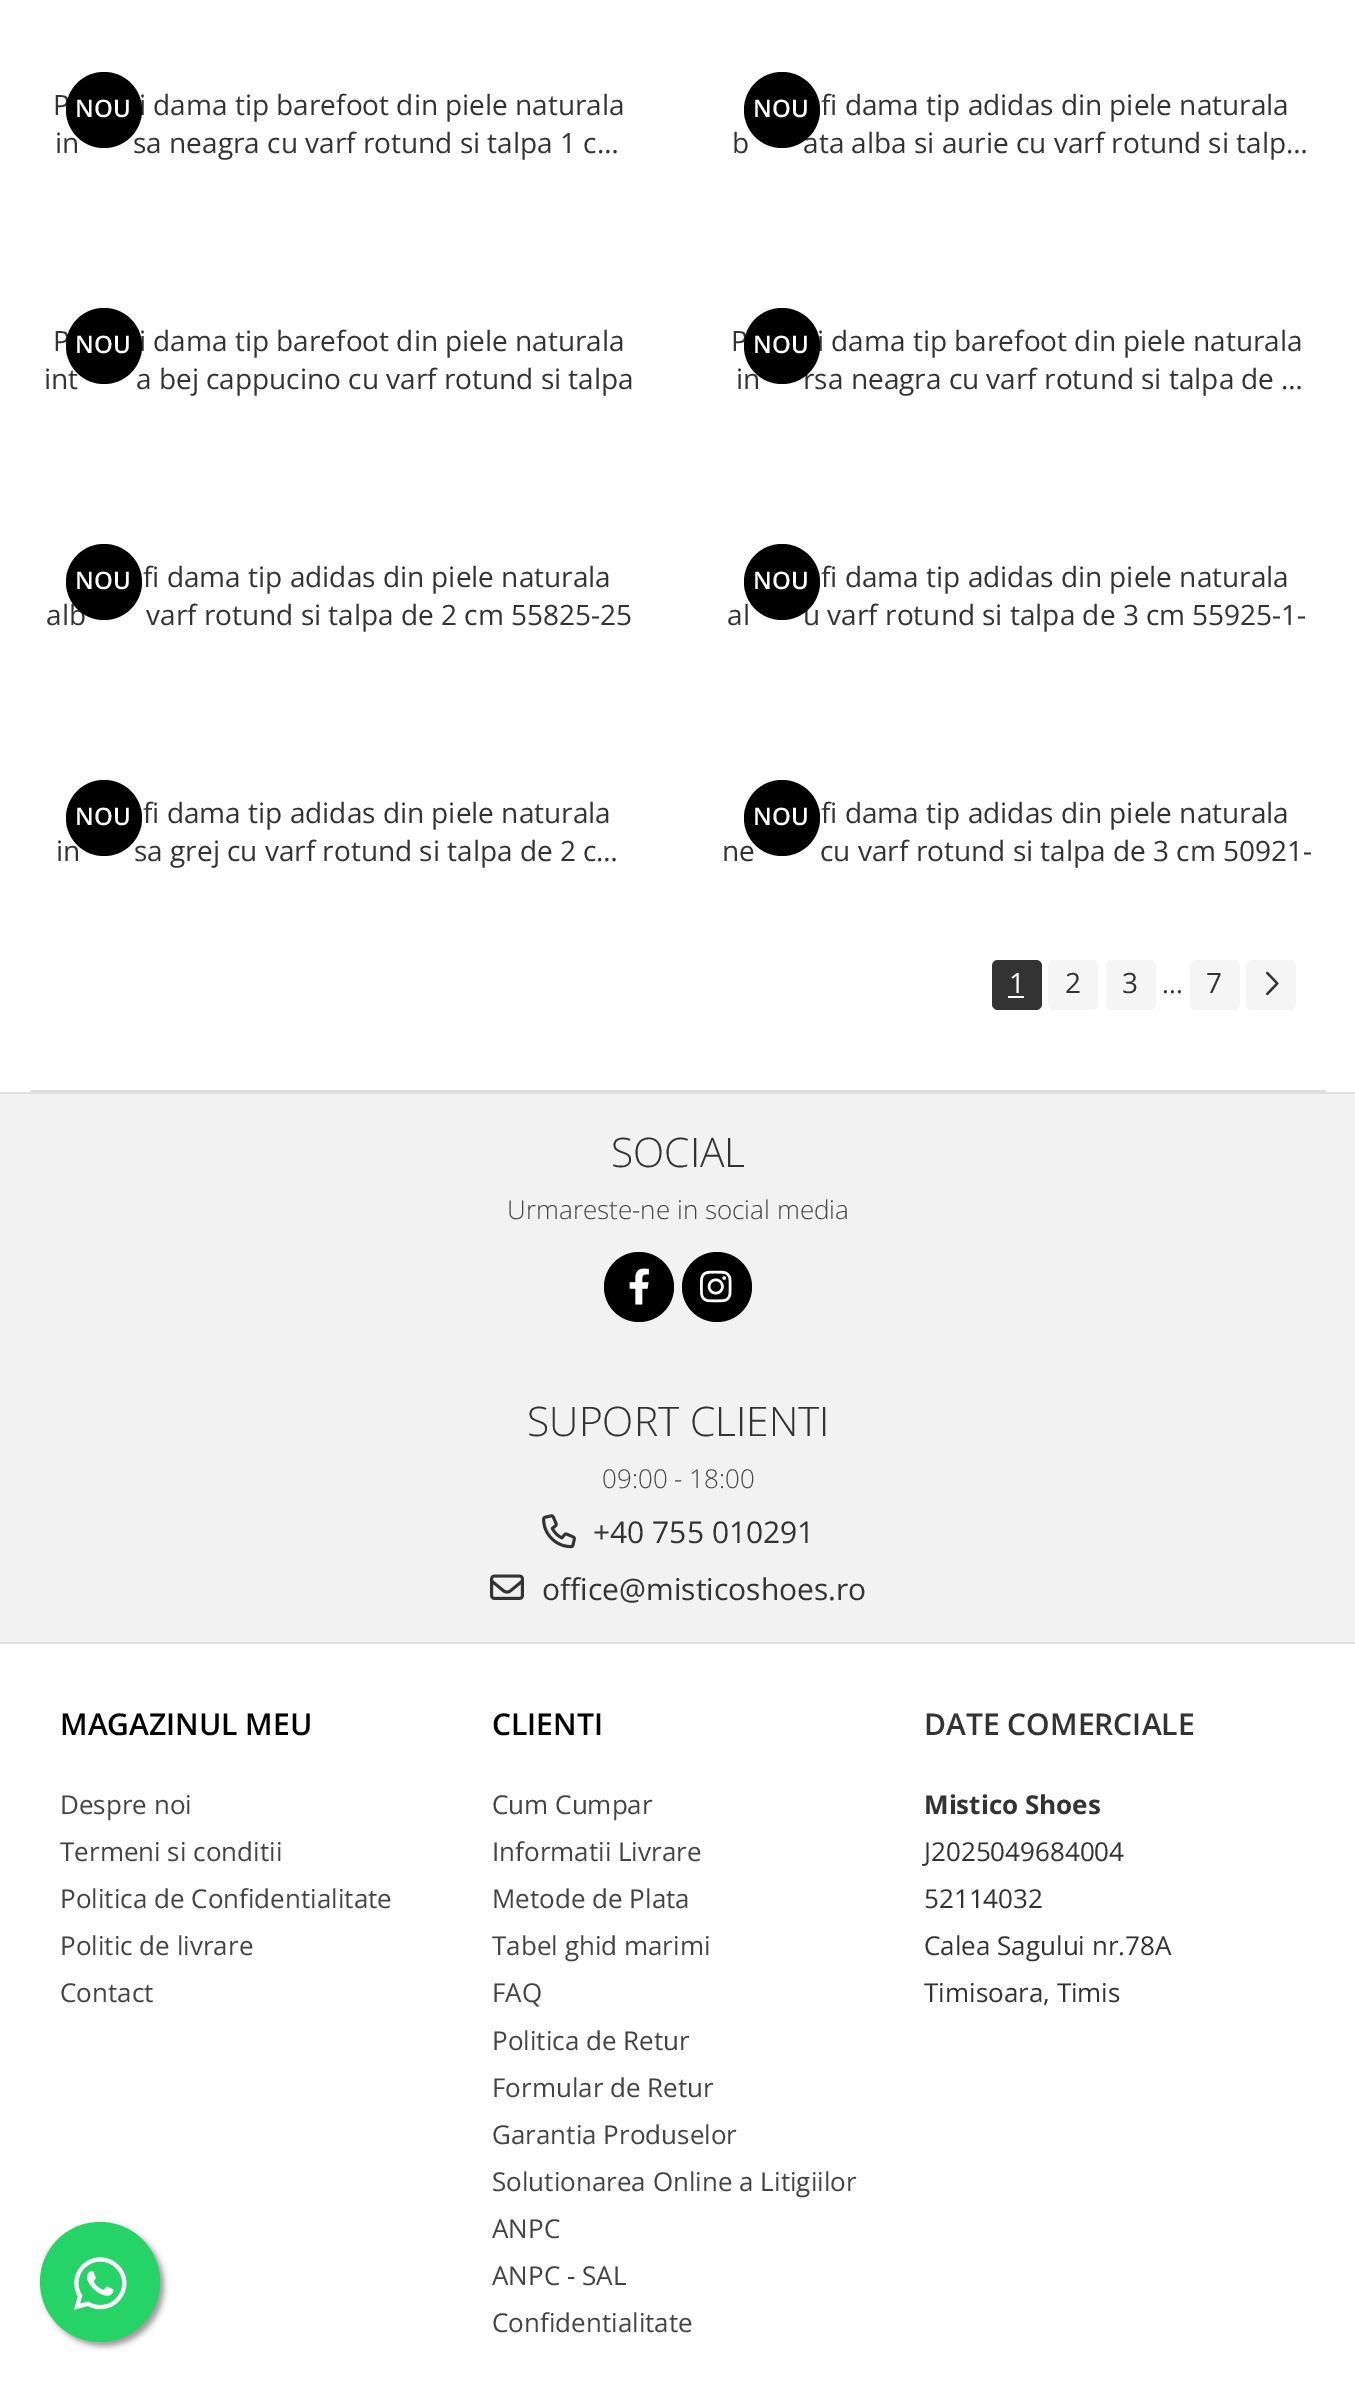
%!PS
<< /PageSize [1355 2382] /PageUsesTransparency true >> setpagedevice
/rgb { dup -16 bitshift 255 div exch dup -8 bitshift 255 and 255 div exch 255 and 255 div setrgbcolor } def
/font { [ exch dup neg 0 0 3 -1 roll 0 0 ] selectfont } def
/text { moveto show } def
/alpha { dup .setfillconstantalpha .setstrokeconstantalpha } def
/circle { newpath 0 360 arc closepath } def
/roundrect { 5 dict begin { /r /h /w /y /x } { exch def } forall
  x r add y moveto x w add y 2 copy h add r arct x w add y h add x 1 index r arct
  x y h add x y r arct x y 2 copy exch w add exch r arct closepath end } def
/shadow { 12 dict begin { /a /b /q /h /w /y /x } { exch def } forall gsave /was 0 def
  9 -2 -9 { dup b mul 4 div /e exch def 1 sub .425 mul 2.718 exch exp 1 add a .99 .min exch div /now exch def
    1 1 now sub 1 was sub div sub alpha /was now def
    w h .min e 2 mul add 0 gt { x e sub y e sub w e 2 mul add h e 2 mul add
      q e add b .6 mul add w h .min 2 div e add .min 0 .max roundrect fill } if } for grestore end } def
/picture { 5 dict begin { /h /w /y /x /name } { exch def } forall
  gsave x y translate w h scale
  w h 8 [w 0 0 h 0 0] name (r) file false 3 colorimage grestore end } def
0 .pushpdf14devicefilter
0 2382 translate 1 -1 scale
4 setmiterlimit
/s1 { /OpenSans-Regular 28 font 16#333333 rgb } def
/s2 { /OpenSans-SemiBold 24 font 16#FFFFFF rgb } def
/s3 { /OpenSans-Regular 28 font 16#FFFFFF rgb } def
/s4 { /OpenSans-Regular 26 font 16#333333 rgb } def
/s5 { /OpenSans-Light 40.75 font 16#333333 rgb } def
/s6 { /OpenSans-Light 26 font 16#444444 rgb } def
/s7 { /OpenSans-Regular 30 font 16#333333 rgb } def
/s8 { /OpenSans-SemiBold 30 font 16#000000 rgb } def
/s9 { /OpenSans-Regular 26 font 16#444444 rgb } def
/s10 { /OpenSans-SemiBold 30 font 16#333333 rgb } def
/s11 { /OpenSans-Bold 26 font 16#333333 rgb } def
16#FFFFFF rgb
0 0 1355 2382 rectfill
16#DFDFDF rgb
30 1090 1296 2 rectfill
s1
(P) 53 115 text
(i dama tip barefoot din piele naturala) 139 115 text
(in) 55 153 text
(sa neagra cu varf rotund si talpa 1 c…) 133 153 text
16#000000 rgb
104 110 38 circle fill
s2
(NOU) 75 117 text
s1
(fi dama tip adidas din piele naturala) 821 115 text
(b) 732 153 text
(ata alba si aurie cu varf rotund si talp…) 803 153 text
16#000000 rgb
782 110 38 circle fill
s2
(NOU) 753 117 text
s1
(P) 53 351 text
(i dama tip barefoot din piele naturala) 139 351 text
(int) 44 389 text
(a bej cappucino cu varf rotund si talpa) 136 389 text
16#000000 rgb
104 346 38 circle fill
s2
(NOU) 75 353 text
s1
(P) 731 351 text
(i dama tip barefoot din piele naturala) 817 351 text
(in) 736 389 text
(rsa neagra cu varf rotund si talpa de …) 803 389 text
16#000000 rgb
782 346 38 circle fill
s2
(NOU) 753 353 text
s1
(fi dama tip adidas din piele naturala) 143 587 text
(alb) 46 625 text
(varf rotund si talpa de 2 cm 55825-25) 146 625 text
16#000000 rgb
104 582 38 circle fill
s2
(NOU) 75 589 text
s1
(fi dama tip adidas din piele naturala) 821 587 text
(al) 727 625 text
(u varf rotund si talpa de 3 cm 55925-1-) 803 625 text
16#000000 rgb
782 582 38 circle fill
s2
(NOU) 753 589 text
s1
(fi dama tip adidas din piele naturala) 143 823 text
(in) 56 861 text
(sa grej cu varf rotund si talpa de 2 c…) 134 861 text
16#000000 rgb
104 818 38 circle fill
s2
(NOU) 75 825 text
s1
(fi dama tip adidas din piele naturala) 821 823 text
(ne) 722 861 text
(cu varf rotund si talpa de 3 cm 50921-) 820 861 text
16#000000 rgb
782 818 38 circle fill
s2
(NOU) 753 825 text
16#333333 rgb
992 960 50 50 6 roundrect fill
s3
(1) 1009 993 text
1008 996 16 2 rectfill
16#F5F5F5 rgb
1048 960 50 50 6 roundrect fill
s1
(2) 1065 993 text
16#F5F5F5 rgb
1106 960 50 50 6 roundrect fill
s1
(3) 1122 993 text
s4
(...) 1162 993 text
16#F5F5F5 rgb
1190 960 50 50 6 roundrect fill
s1
(7) 1206 993 text
16#F5F5F5 rgb
1246 960 50 50 6 roundrect fill
(pic1.raw) 1266 971 13 25 picture
16#F2F2F2 rgb
0 1094 1355 548 rectfill
16#DFDFDF rgb
0 1092 1355 2 rectfill
0 1642 1355 2 rectfill
s5
(SOCIAL) 611 1167 text
s6
(Urmareste-ne in social media) 507 1219 text
16#000000 rgb
639 1287 35 circle fill
(pic2.raw) 629 1268 20 37 picture
717 1287 35 circle fill
(pic3.raw) 700 1270 32 33 picture
s5
(SUPORT CLIENTI) 527 1436 text
s6
(09:00 - 18:00) 602 1488 text
(pic4.raw) 542 1514 34 35 picture
s7
(+40 755 010291) 593 1543 text
(pic5.raw) 490 1574 34 26 picture
(office@misticoshoes.ro) 542 1600 text
s8
(MAGAZINUL MEU) 60 1735 text
s9
(Despre noi) 60 1814 text
(Termeni si conditii) 60 1861 text
(Politica de Confidentialitate) 60 1908 text
(Politic de livrare) 60 1955 text
(Contact) 60 2002 text
s8
(CLIENTI) 492 1735 text
s9
(Cum Cumpar) 492 1814 text
(Informatii Livrare) 492 1861 text
(Metode de Plata) 492 1908 text
(Tabel ghid marimi) 492 1955 text
(FAQ) 492 2002 text
(Politica de Retur) 492 2050 text
(Formular de Retur) 492 2097 text
(Garantia Produselor) 492 2144 text
(Solutionarea Online a Litigiilor) 492 2191 text
(ANPC) 492 2238 text
(ANPC - SAL) 492 2285 text
(Confidentialitate) 492 2332 text
s10
(DATE COMERCIALE) 924 1735 text
s11
(Mistico Shoes) 924 1814 text
s4
(J2025049684004) 924 1861 text
(52114032) 924 1908 text
(Calea Sagului nr.78A) 924 1955 text
(Timisoara, Timis) 924 2002 text
16#999999 rgb
44 2226 120 120 60 3 1 shadow
16#25D366 rgb
100 2282 60 circle fill
(pic6.raw) 74 2257 53 53 picture
.poppdf14devicefilter showpage
